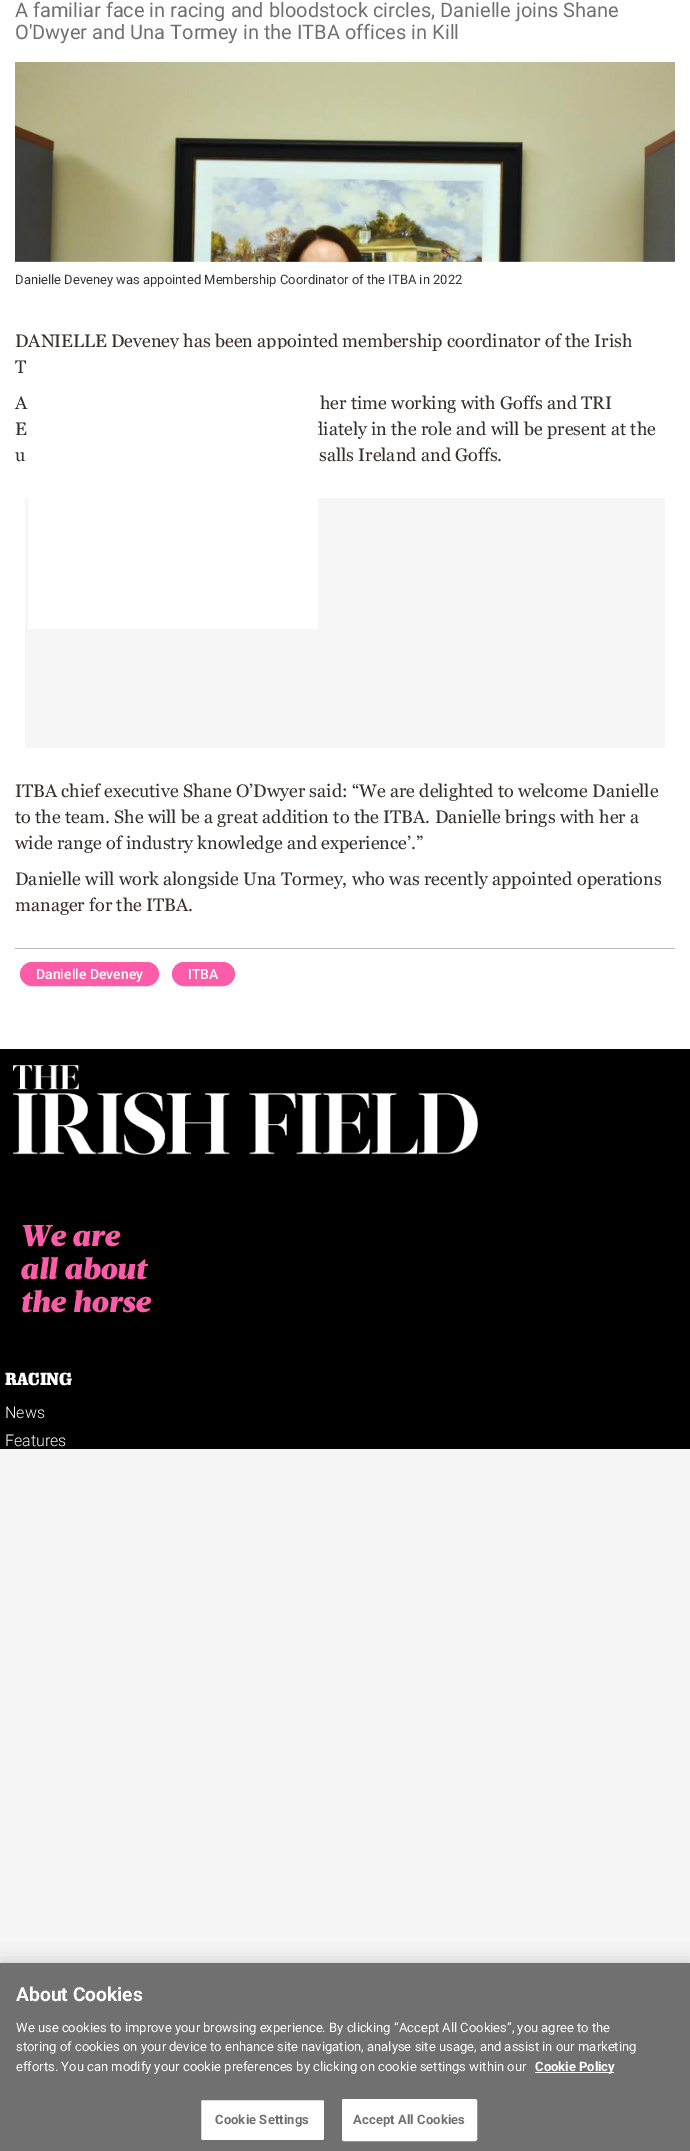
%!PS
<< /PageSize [690 2151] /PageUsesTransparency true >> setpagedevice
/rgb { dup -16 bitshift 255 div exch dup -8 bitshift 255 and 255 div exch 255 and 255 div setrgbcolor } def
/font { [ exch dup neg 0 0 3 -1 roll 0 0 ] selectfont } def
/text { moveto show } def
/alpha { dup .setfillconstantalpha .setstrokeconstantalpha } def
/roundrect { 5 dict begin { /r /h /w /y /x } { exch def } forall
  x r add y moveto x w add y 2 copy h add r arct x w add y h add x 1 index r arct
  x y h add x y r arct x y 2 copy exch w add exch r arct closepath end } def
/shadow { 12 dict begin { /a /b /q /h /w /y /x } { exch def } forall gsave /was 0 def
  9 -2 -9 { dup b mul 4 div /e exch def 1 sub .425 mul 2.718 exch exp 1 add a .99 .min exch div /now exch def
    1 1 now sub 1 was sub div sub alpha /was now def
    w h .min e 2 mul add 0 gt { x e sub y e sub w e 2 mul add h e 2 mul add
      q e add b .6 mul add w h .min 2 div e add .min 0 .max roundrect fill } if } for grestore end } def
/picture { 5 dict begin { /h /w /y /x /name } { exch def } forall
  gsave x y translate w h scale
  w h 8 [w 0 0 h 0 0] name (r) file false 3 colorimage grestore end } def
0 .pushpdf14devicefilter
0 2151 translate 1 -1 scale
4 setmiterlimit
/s1 { /Roboto-Regular 20 font 16#707070 rgb } def
/s2 { /Roboto-Regular 13 font 16#333333 rgb } def
/s3 { /Georgia-Regular 18 font 16#372C2C rgb } def
/s4 { /Roboto-Medium 14 font 16#FFFFFF rgb } def
/s5 { /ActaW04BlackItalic-BlackItalic 30 font 16#FD5DA8 rgb } def
/s6 { /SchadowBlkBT-Black 17 font 16#FFFFFF rgb } def
/s7 { /Roboto-Light 16 font 16#FFFFFF rgb } def
/s8 { /Roboto-Bold 19.25 font 16#FFFFFF rgb } def
/s9 { /Roboto-Regular 13 font 16#FFFFFF rgb } def
/s10 { /Roboto-Bold 13 font 16#FFFFFF rgb } def
16#F5F5F5 rgb
0 0 690 2151 rectfill
16#FFFFFF rgb
0 0 690 1049 rectfill
s1
(A familiar face in racing and bloodstock circles, Danielle joins Shane) 15 17 text
(O'Dwyer and Una Tormey in the ITBA offices in Kill) 15 39 text
(pic1.raw) 15 62 660 200 picture
s2
(Danielle Deveney was appointed Membership Coordinator of the ITBA in 2022) 15 284 text
16#BDBDBD rgb
15 948 660 1 rectfill
s3
(DANIELLE Deveney has been appointed membership coordinator of the Irish) 15 347 text
(T) 15 373 text
(A) 15 409 text
(her time working with Goffs and TRI) 320 409 text
(E) 15 435 text
(diately in the role and will be present at the) 313 435 text
(u) 15 461 text
(salls Ireland and Goffs.) 319 461 text
16#F6F6F6 rgb
25 498 640 250 rectfill
s3
(ITBA chief executive Shane O’Dwyer said: “We are delighted to welcome Danielle) 15 797 text
(to the team. She will be a great addition to the ITBA. Danielle brings with her a) 15 823 text
(wide range of industry knowledge and experience’.”) 15 849 text
(Danielle will work alongside Una Tormey, who was recently appointed operations) 15 885 text
(manager for the ITBA.) 15 911 text
16#FD5DA8 rgb
20.5 962.5 138 23 11.5 roundrect gsave fill grestore
stroke
s4
(Danielle Deveney) 36 979 text
16#FD5DA8 rgb
172.5 962.5 62 23 11.5 roundrect gsave fill grestore
stroke
s4
(ITBA) 188 979 text
28 349 290 280 rectfill
16#000000 rgb
0 1049 690 400 rectfill
(pic2.raw) 13 1065 465 90 picture
s5
(We are) 20 1246 text
(all about) 20 1279 text
(the horse) 20 1312 text
s6
(RACING) 5 1385 text
s7
(News) 5 1418 text
(Features) 5 1446 text
16#000000 rgb
0 1963 690 188 0 9 0.2 shadow
16#707070 rgb
0 1963 690 188 rectfill
s8
(About Cookies) 16 2001 text
s9
(We use cookies to improve your browsing experience. By clicking “Accept All Cookies”, you agree to the) 16 2032 text
(storing of cookies on your device to enhance site navigation, analyse site usage, and assist in our marketing) 16 2051 text
(efforts. You can modify your cookie preferences by clicking on cookie settings within our) 16 2071 text
535 2072 79 1 rectfill
s10
(Cookie Policy) 535 2071 text
200.5 2099.5 124 41 1.5 roundrect gsave fill grestore
16#707070 rgb
stroke
215 2124 moveto 0.1 0 (Cookie Settings) ashow
16#FFFFFF rgb
342.5 2099.5 134 41 1.5 roundrect gsave fill grestore
stroke
16#707070 rgb
353 2124 moveto 0.1 0 (Accept All Cookies) ashow
.poppdf14devicefilter showpage
